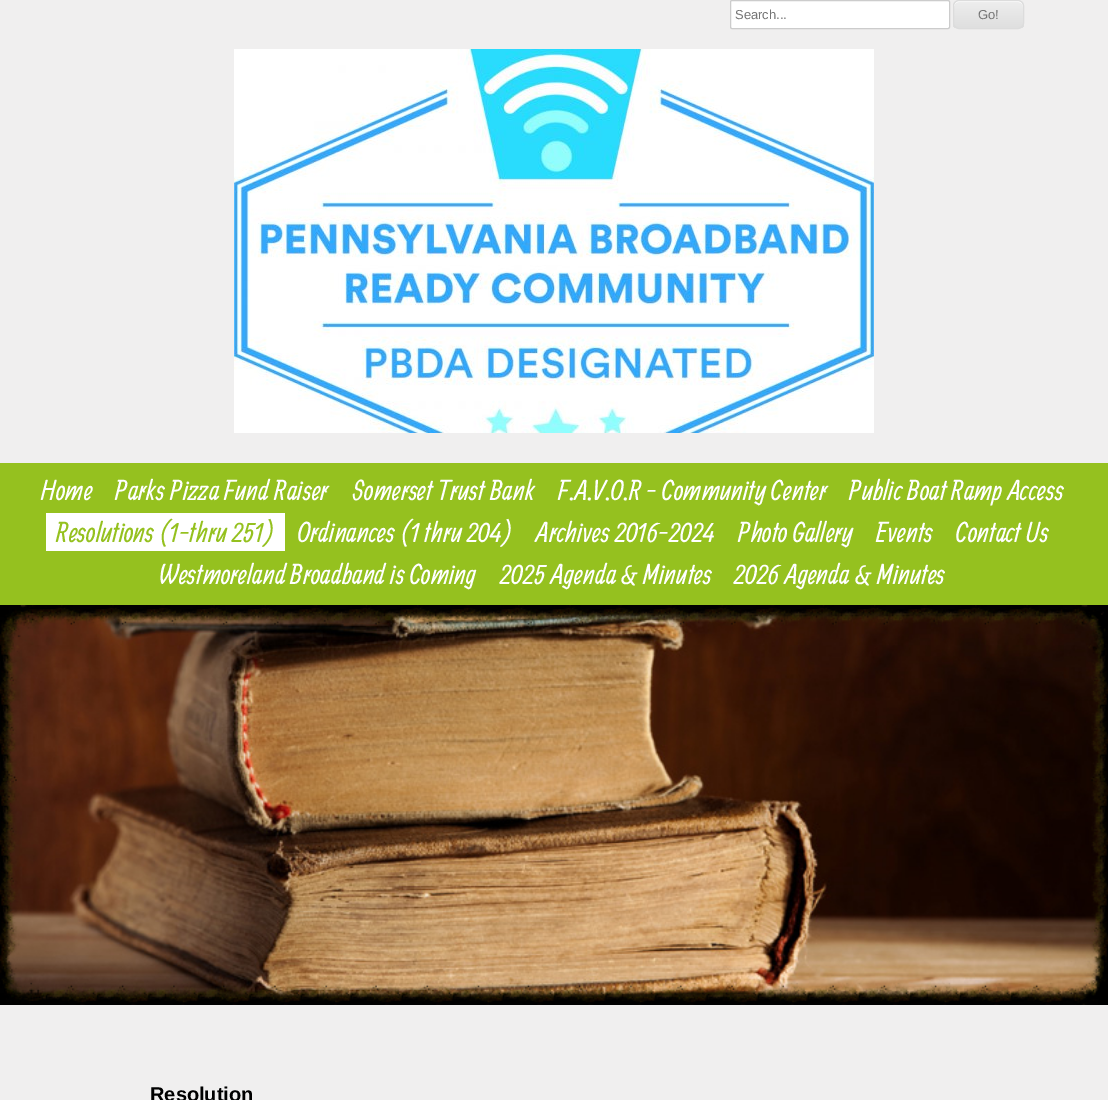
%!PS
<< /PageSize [1108 1100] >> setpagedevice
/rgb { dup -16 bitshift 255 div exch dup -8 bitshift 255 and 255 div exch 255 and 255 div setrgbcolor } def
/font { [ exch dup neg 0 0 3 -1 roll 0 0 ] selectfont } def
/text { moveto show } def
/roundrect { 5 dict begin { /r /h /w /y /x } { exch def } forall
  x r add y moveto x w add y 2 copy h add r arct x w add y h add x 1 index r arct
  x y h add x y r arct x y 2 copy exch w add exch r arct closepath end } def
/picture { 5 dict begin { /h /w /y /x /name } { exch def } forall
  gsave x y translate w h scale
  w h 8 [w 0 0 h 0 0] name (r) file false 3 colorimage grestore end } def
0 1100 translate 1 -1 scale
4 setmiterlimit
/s1 { /LiberationSans-Regular 13 font 16#757575 rgb } def
/s2 { /Allan-Regular 28 font 16#FFFFFF rgb } def
/s3 { /Allan-Regular 28 font 16#95C11F rgb } def
/s4 { /LiberationSans-Bold 20 font 16#000000 rgb } def
16#F0EFEF rgb
0 0 1108 1100 rectfill
16#FFFFFF rgb
730.5 0.5 219 28 1.5 roundrect gsave fill grestore
16#CCCCCC rgb
stroke
s1
(Search...) 735 19 text
gsave
953 0 71 29 6 roundrect clip newpath
gsave 953 1 moveto 1024 1 lineto 1024 28 lineto 953 28 lineto closepath clip newpath
<< /ShadingType 2 /ColorSpace /DeviceRGB /Coords [954 1 954 28] /Extend [true true] /Function << /FunctionType 3 /Domain [0 1] /Functions [<< /FunctionType 2 /Domain [0 1] /C0 [0.929 0.929 0.929] /C1 [0.929 0.929 0.929] /N 1 >> << /FunctionType 2 /Domain [0 1] /C0 [0.929 0.929 0.929] /C1 [0.875 0.875 0.875] /N 1 >>] /Bounds [0.05] /Encode [0 1 0 1] >> >> shfill grestore
grestore
16#FFFFFF rgb
959 2 moveto 1018 2 lineto 1021 2 1023 4 1023 7 curveto 1023 -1 1014 1 1008 1 curveto 969 1 lineto 963 1 954 -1 954 7 curveto 954 4 956 2 959 2 curveto closepath fill
16#DCDCDC rgb
953.5 0.5 70 28 5.5 roundrect stroke
s1
(Go!) 978 19 text
(pic1.raw) 234 49 640 384 picture
16#95C11F rgb
0 463 1108 142 rectfill
s2
(Home) 41 500 text
(Parks Pizza Fund Raiser) 115 500 text
(Somerset Trust Bank) 352 500 text
(F.A.V.O.R - Community Center) 558 500 text
(Public Boat Ramp Access) 849 500 text
46 513 239 38 rectfill
s3
(Resolutions \(1-thru 251\)) 56 542 text
s2
(Ordinances \(1 thru 204\)) 298 542 text
(Archives 2016-2024) 536 542 text
(Photo Gallery) 738 542 text
(Events) 876 542 text
(Contact Us) 956 542 text
(Westmoreland Broadband is Coming) 159 584 text
(2025 Agenda & Minutes) 500 584 text
(2026 Agenda & Minutes) 734 584 text
(pic2.raw) 0 605 1108 400 picture
s4
(Resolution) 150 1101 text
showpage
